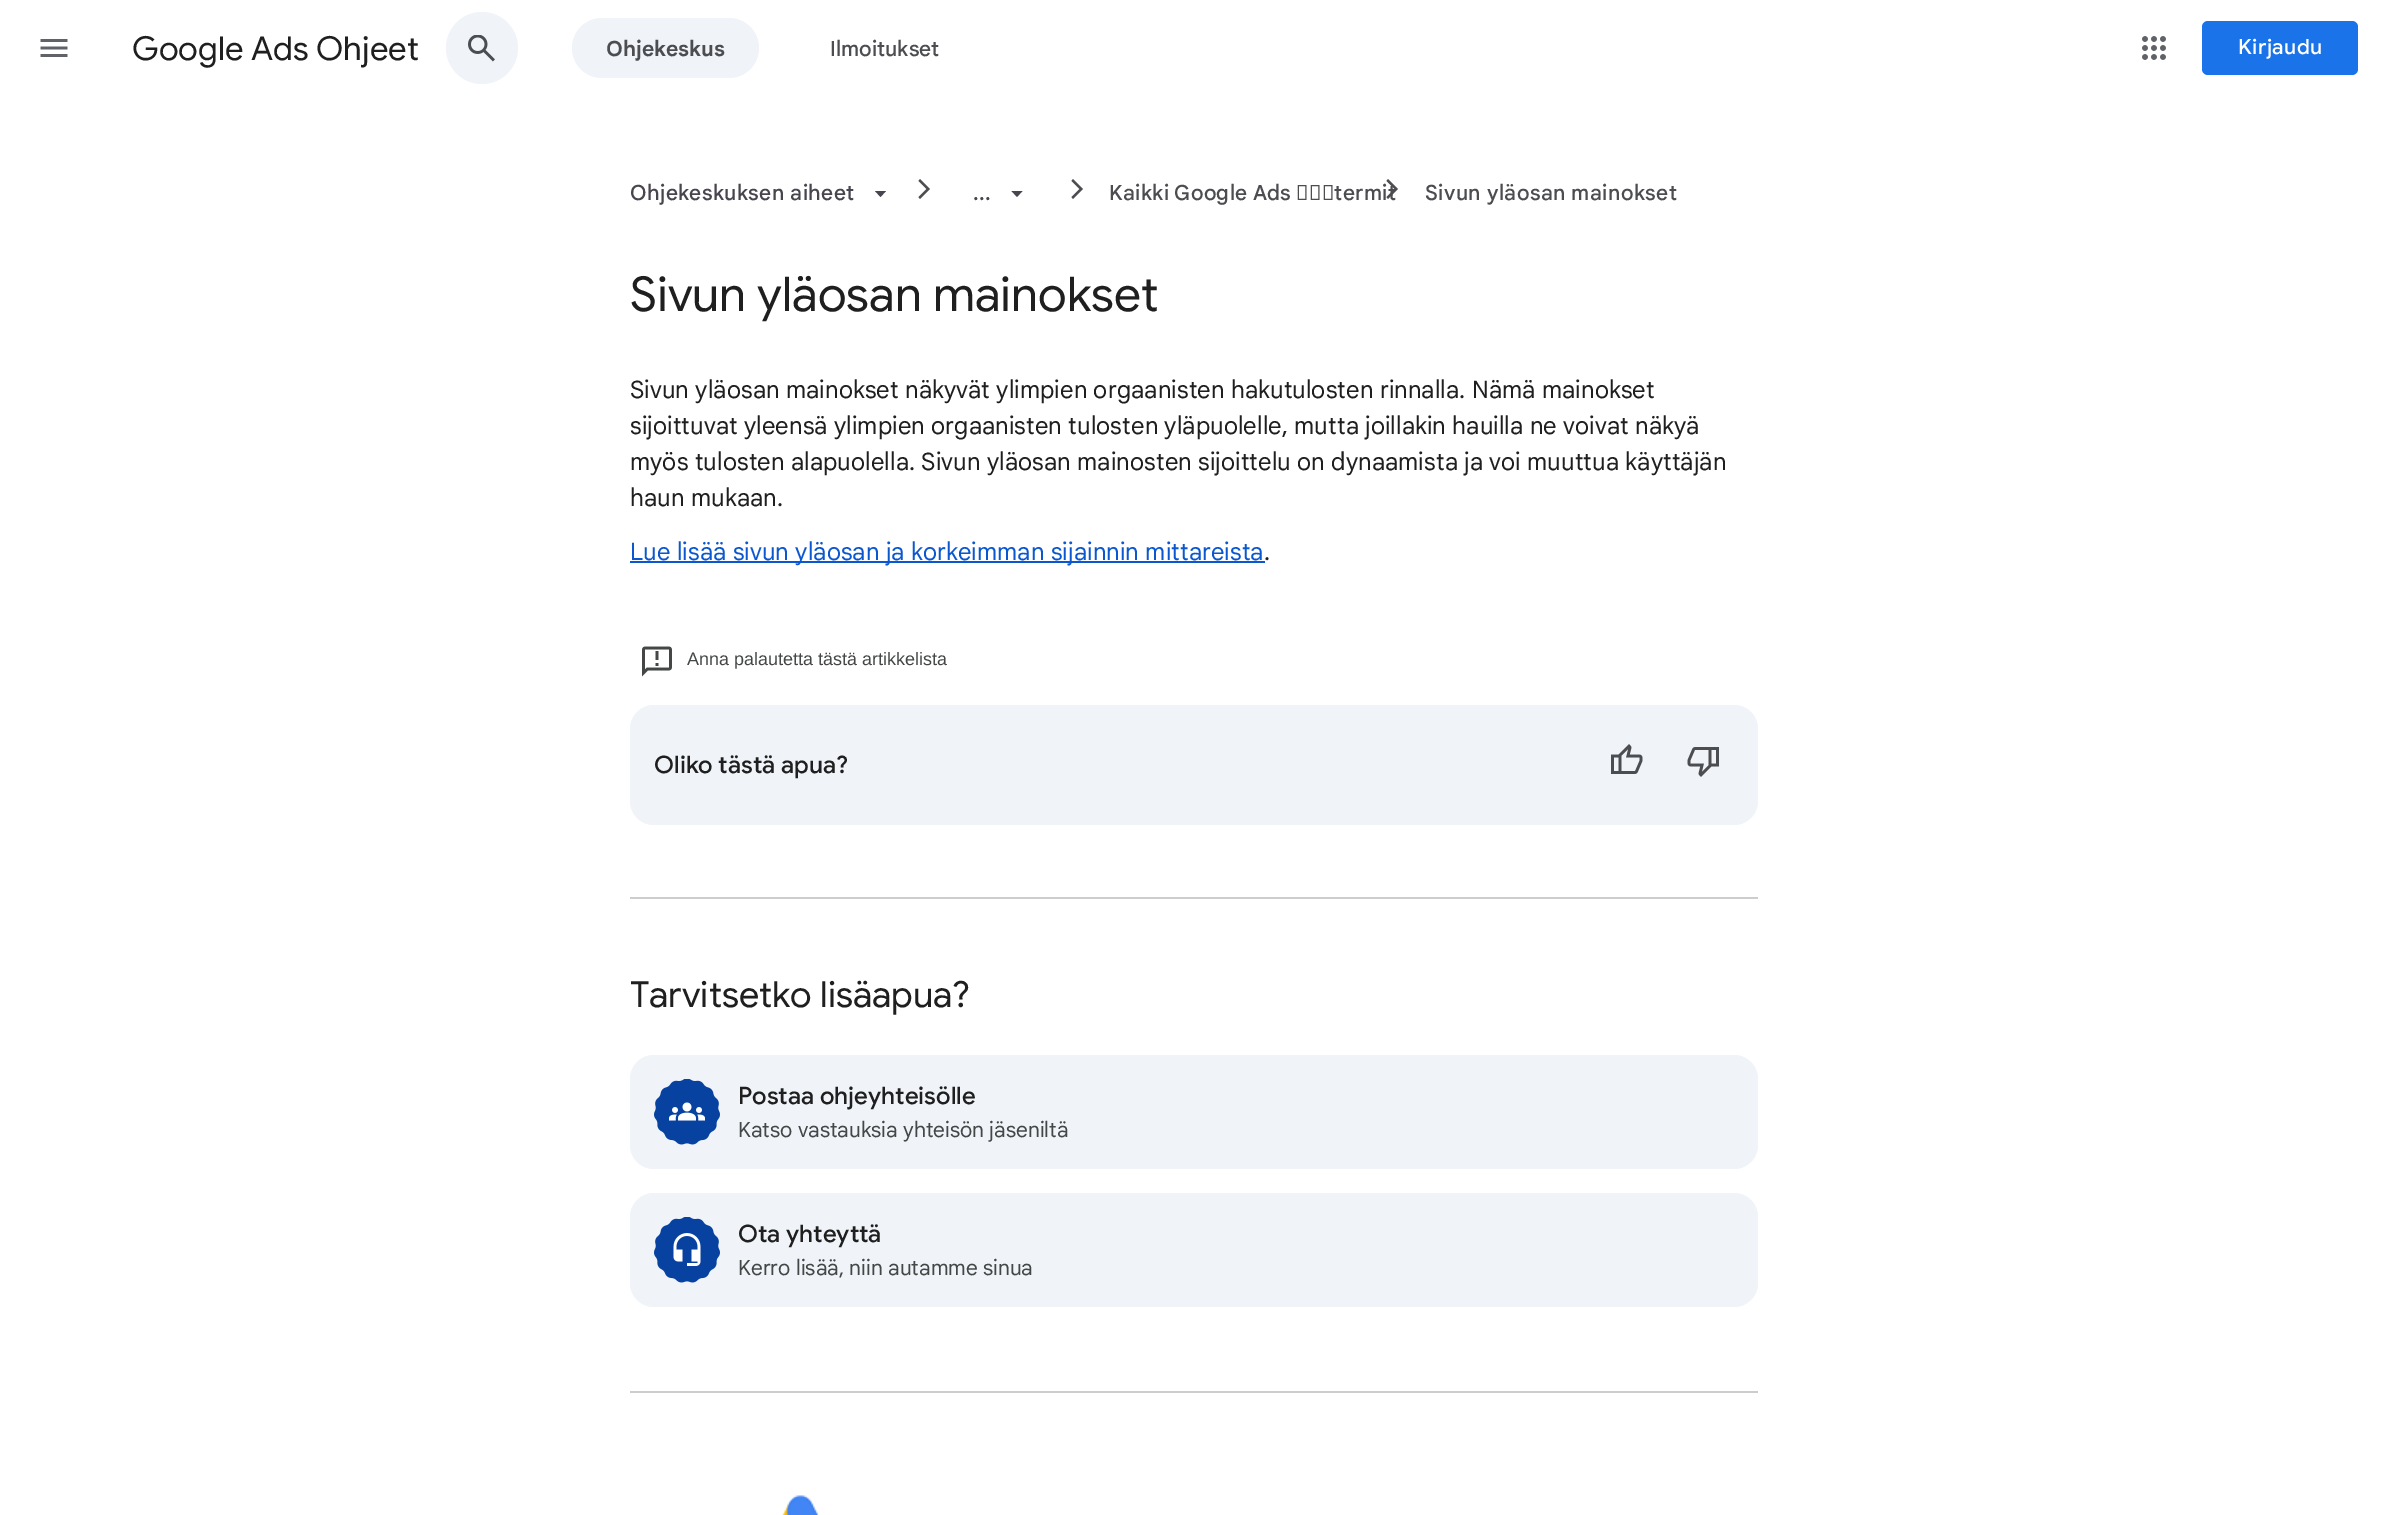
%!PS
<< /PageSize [2387 1515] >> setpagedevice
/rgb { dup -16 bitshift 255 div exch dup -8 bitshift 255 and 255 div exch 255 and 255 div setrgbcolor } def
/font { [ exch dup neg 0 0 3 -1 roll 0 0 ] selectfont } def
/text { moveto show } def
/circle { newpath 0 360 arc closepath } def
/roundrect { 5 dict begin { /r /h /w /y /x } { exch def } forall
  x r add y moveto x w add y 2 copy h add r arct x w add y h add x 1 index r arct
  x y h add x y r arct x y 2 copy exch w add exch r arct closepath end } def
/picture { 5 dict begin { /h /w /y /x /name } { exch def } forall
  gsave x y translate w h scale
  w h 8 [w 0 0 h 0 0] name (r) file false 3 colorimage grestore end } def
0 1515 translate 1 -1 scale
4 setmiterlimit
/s1 { /GoogleSans-Regular 33 font 16#1F1F1F rgb } def
/s2 { /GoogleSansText-Bold 21 font 16#4C4D50 rgb } def
/s3 { /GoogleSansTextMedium-Medium 21 font 16#4C4D50 rgb } def
/s4 { /GoogleSans-Regular 48 font 16#1F1F1F rgb } def
/s5 { /LiberationSans-Regular 18 font 16#444746 rgb } def
/s6 { /GoogleSans-Medium 24 font 16#1F1F1F rgb } def
/s7 { /GoogleSans-Regular 36 font 16#1F1F1F rgb } def
/s8 { /GoogleSansText-Regular 21 font 16#444746 rgb } def
16#FFFFFF rgb
0 0 2387 1515 rectfill
(pic1.raw) 40 39 28 18 picture
s1
(Google Ads Ohjeet) 132 60 text
16#F0F4F9 rgb
482 48 36 circle fill
(pic2.raw) 468 35 27 27 picture
572 18 187 60 30 roundrect fill
s2
(Ohjekeskus) 606 56 text
s3
(Ilmoitukset) 830 56 text
(pic3.raw) 2142 36 24 24 picture
16#1A73E8 rgb
2202 21 156 54 6 roundrect fill
/GoogleSans-Medium 21 font
16#FFFFFF rgb
2238 54 moveto 0.4 0 (Kirjaudu) ashow
/GoogleSansTextMedium-Medium 21 font
16#49454E rgb
630 200 moveto 0.4 0 (Ohjekeskuksen aiheet) ashow
875 191 moveto 880.5 197 lineto 886 191 lineto closepath fill
16#4C4D50 rgb
920 199 moveto 918.5 197 lineto 926.5 189 lineto 918.5 181 lineto 920 179 lineto 930 189 lineto closepath fill
16#49454E rgb
1011.5 191 moveto 1017 197 lineto 1022.5 191 lineto closepath fill
973 200 moveto 0.4 0 (...) ashow
16#4C4D50 rgb
1073 199 moveto 1071.5 197 lineto 1079.5 189 lineto 1071.5 181 lineto 1073 179 lineto 1083 189 lineto closepath fill
1109 200 moveto -1 0 32 0.4 0 (Kaikki Google Ads ‑termit) awidthshow
1388 199 moveto 1386.5 197 lineto 1394.5 189 lineto 1386.5 181 lineto 1388 179 lineto 1398 189 lineto closepath fill
1425 200 moveto 0.4 0 (Sivun yläosan mainokset) ashow
s4
(Sivun yläosan mainokset) 630 311 text
/GoogleSansText-Regular 24 font
630 398 moveto 0.12 0 (Sivun yläosan mainokset näkyvät ylimpien orgaanisten hakutulosten rinnalla. Nämä mainokset) ashow
630 434 moveto 0.12 0 (sijoittuvat yleensä ylimpien orgaanisten tulosten yläpuolelle, mutta joillakin hauilla ne voivat näkyä) ashow
630 470 moveto 0.12 0 (myös tulosten alapuolella. Sivun yläosan mainosten sijoittelu on dynaamista ja voi muuttua käyttäjän) ashow
630 506 moveto 0.12 0 (haun mukaan.) ashow
16#0B57D0 rgb
630 561 635 2 rectfill
630 560 moveto 0.12 0 (Lue lisää sivun yläosan ja korkeimman sijainnin mittareista) ashow
16#1F1F1F rgb
1264 560 moveto 0.12 0 (.) ashow
(pic4.raw) 642 646 30 31 picture
s5
(Anna palautetta tästä artikkelista) 687 665 text
16#F0F4F9 rgb
630 705 1128 120 24 roundrect fill
s6
(Oliko tästä apua?) 654 773 text
(pic5.raw) 1611 744 32 30 picture
(pic6.raw) 1687 747 32 30 picture
16#CCCDCF rgb
630 897 1128 2 rectfill
s7
(Tarvitsetko lisäapua?) 630 1007 text
16#F0F4F9 rgb
630 1055 1128 114 24 roundrect fill
(pic7.raw) 654 1079 66 66 picture
(pic8.raw) 669 1102 36 19 picture
s6
(Postaa ohjeyhteisölle) 738 1104 text
s8
(Katso vastauksia yhteisön jäseniltä) 738 1137 text
16#F0F4F9 rgb
630 1193 1128 114 24 roundrect fill
(pic7.raw) 654 1217 66 66 picture
(pic9.raw) 673 1233 28 33 picture
s6
(Ota yhteyttä) 738 1242 text
s8
(Kerro lisää, niin autamme sinua) 738 1275 text
16#CCCDCF rgb
630 1391 1128 2 rectfill
(pic10.raw) 782 1495 37 20 picture
showpage
